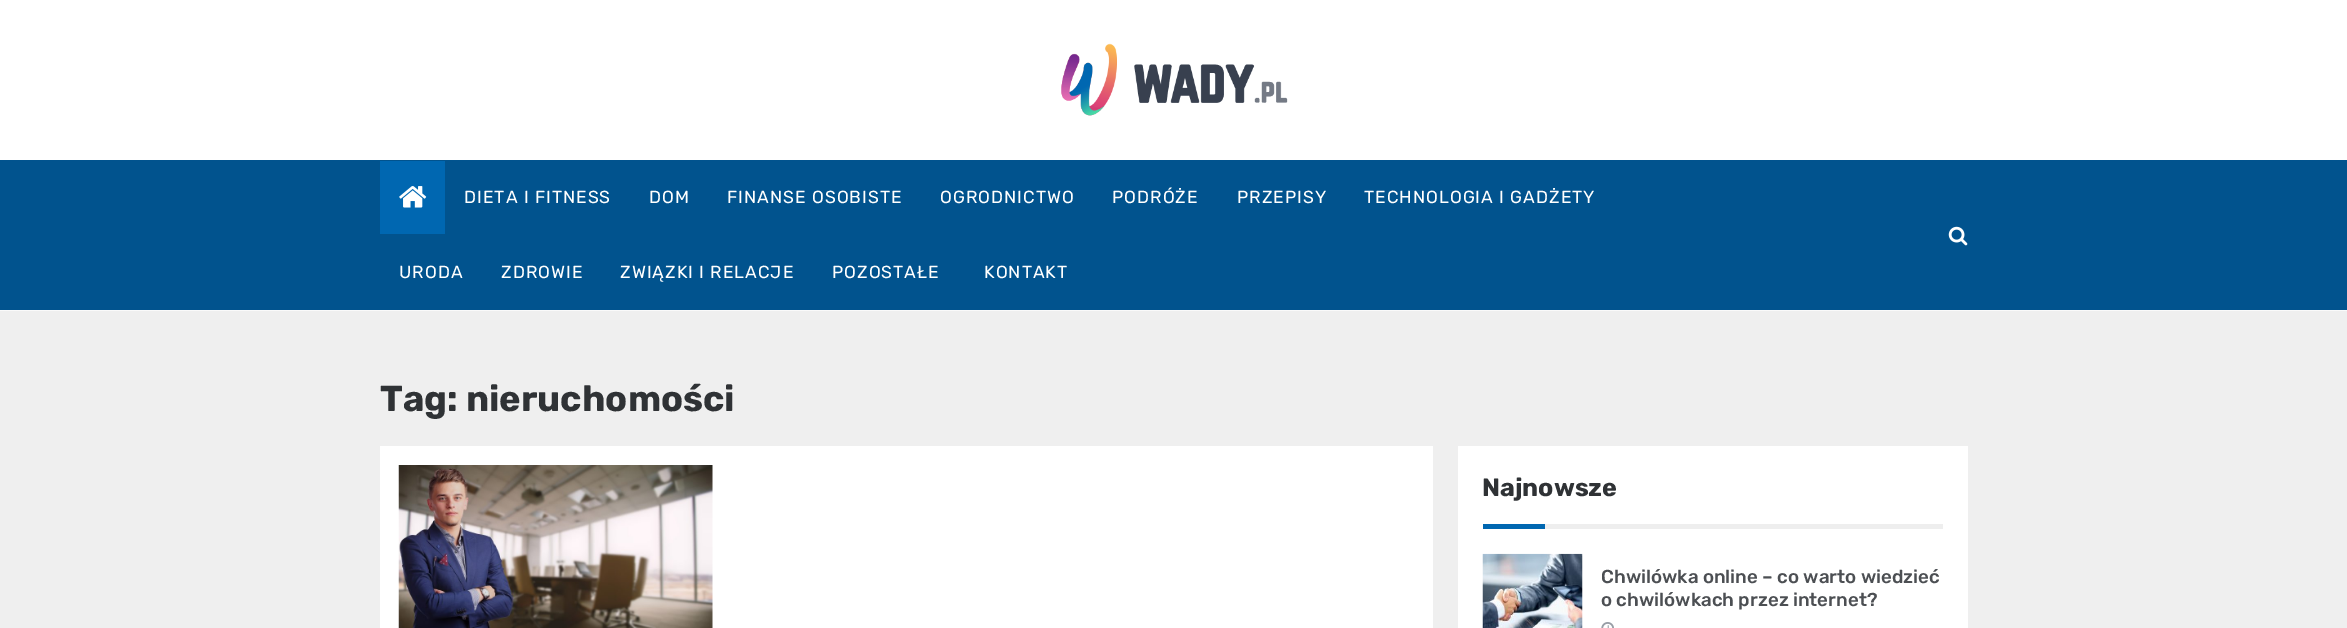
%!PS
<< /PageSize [2347 628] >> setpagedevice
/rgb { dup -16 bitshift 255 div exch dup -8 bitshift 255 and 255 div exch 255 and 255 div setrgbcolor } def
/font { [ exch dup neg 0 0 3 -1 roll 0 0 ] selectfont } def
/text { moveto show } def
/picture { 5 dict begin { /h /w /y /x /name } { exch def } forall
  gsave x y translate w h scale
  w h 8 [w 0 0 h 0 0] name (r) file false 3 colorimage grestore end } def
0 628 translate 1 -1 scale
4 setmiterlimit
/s1 { /Rubik-Bold 36.25 font 16#2F3235 rgb } def
/s2 { /Rubik-Bold 25 font 16#2F3235 rgb } def
/s3 { /Rubik-Medium 18.75 font 16#4C4F53 rgb } def
16#EFEFEF rgb
0 0 2347 628 rectfill
16#FFFFFF rgb
0 0 2347 160 rectfill
16#FAFAFA rgb
0 310 2347 1 rectfill
(pic1.raw) 1061 43 227 73 picture
16#01538E rgb
0 160 2347 150 rectfill
16#0067B1 rgb
380 161 65 73 rectfill
(pic2.raw) 399 186 28 22 picture
/Rubik-Regular 17.5 font
16#FFFFFF rgb
464 203 moveto 1 0 (DIETA I FITNESS) ashow
649 203 moveto 1 0 (DOM) ashow
727 203 moveto 1 0 (FINANSE OSOBISTE) ashow
940 203 moveto 1 0 (OGRODNICTWO) ashow
1112 203 moveto 1 0 (PODRÓŻE) ashow
1237 203 moveto 1 0 (PRZEPISY) ashow
1364 203 moveto 1 0 (TECHNOLOGIA I GADŻETY) ashow
399 278 moveto 1 0 (URODA) ashow
501 278 moveto 1 0 (ZDROWIE) ashow
620 278 moveto 1 0 (ZWIĄZKI I RELACJE) ashow
832 278 moveto 1 0 (POZOSTAŁE) ashow
984 278 moveto 1 0 (KONTAKT) ashow
(pic3.raw) 1948 226 20 20 picture
s1
(Tag: nieruchomości) 380 411 text
16#FFFFFF rgb
380 446 1053 182 rectfill
(pic4.raw) 398 465 315 163 picture
1458 446 510 182 rectfill
s2
(Najnowsze) 1482 496 text
16#0067B1 rgb
1483 524 62 5 rectfill
16#EEEEEE rgb
1545 524 398 5 rectfill
(pic5.raw) 1482 553 101 75 picture
s3
(Chwilówka online – co warto wiedzieć) 1601 583 text
(o chwilówkach przez internet?) 1601 606 text
(pic6.raw) 1601 622 13 6 picture
showpage
